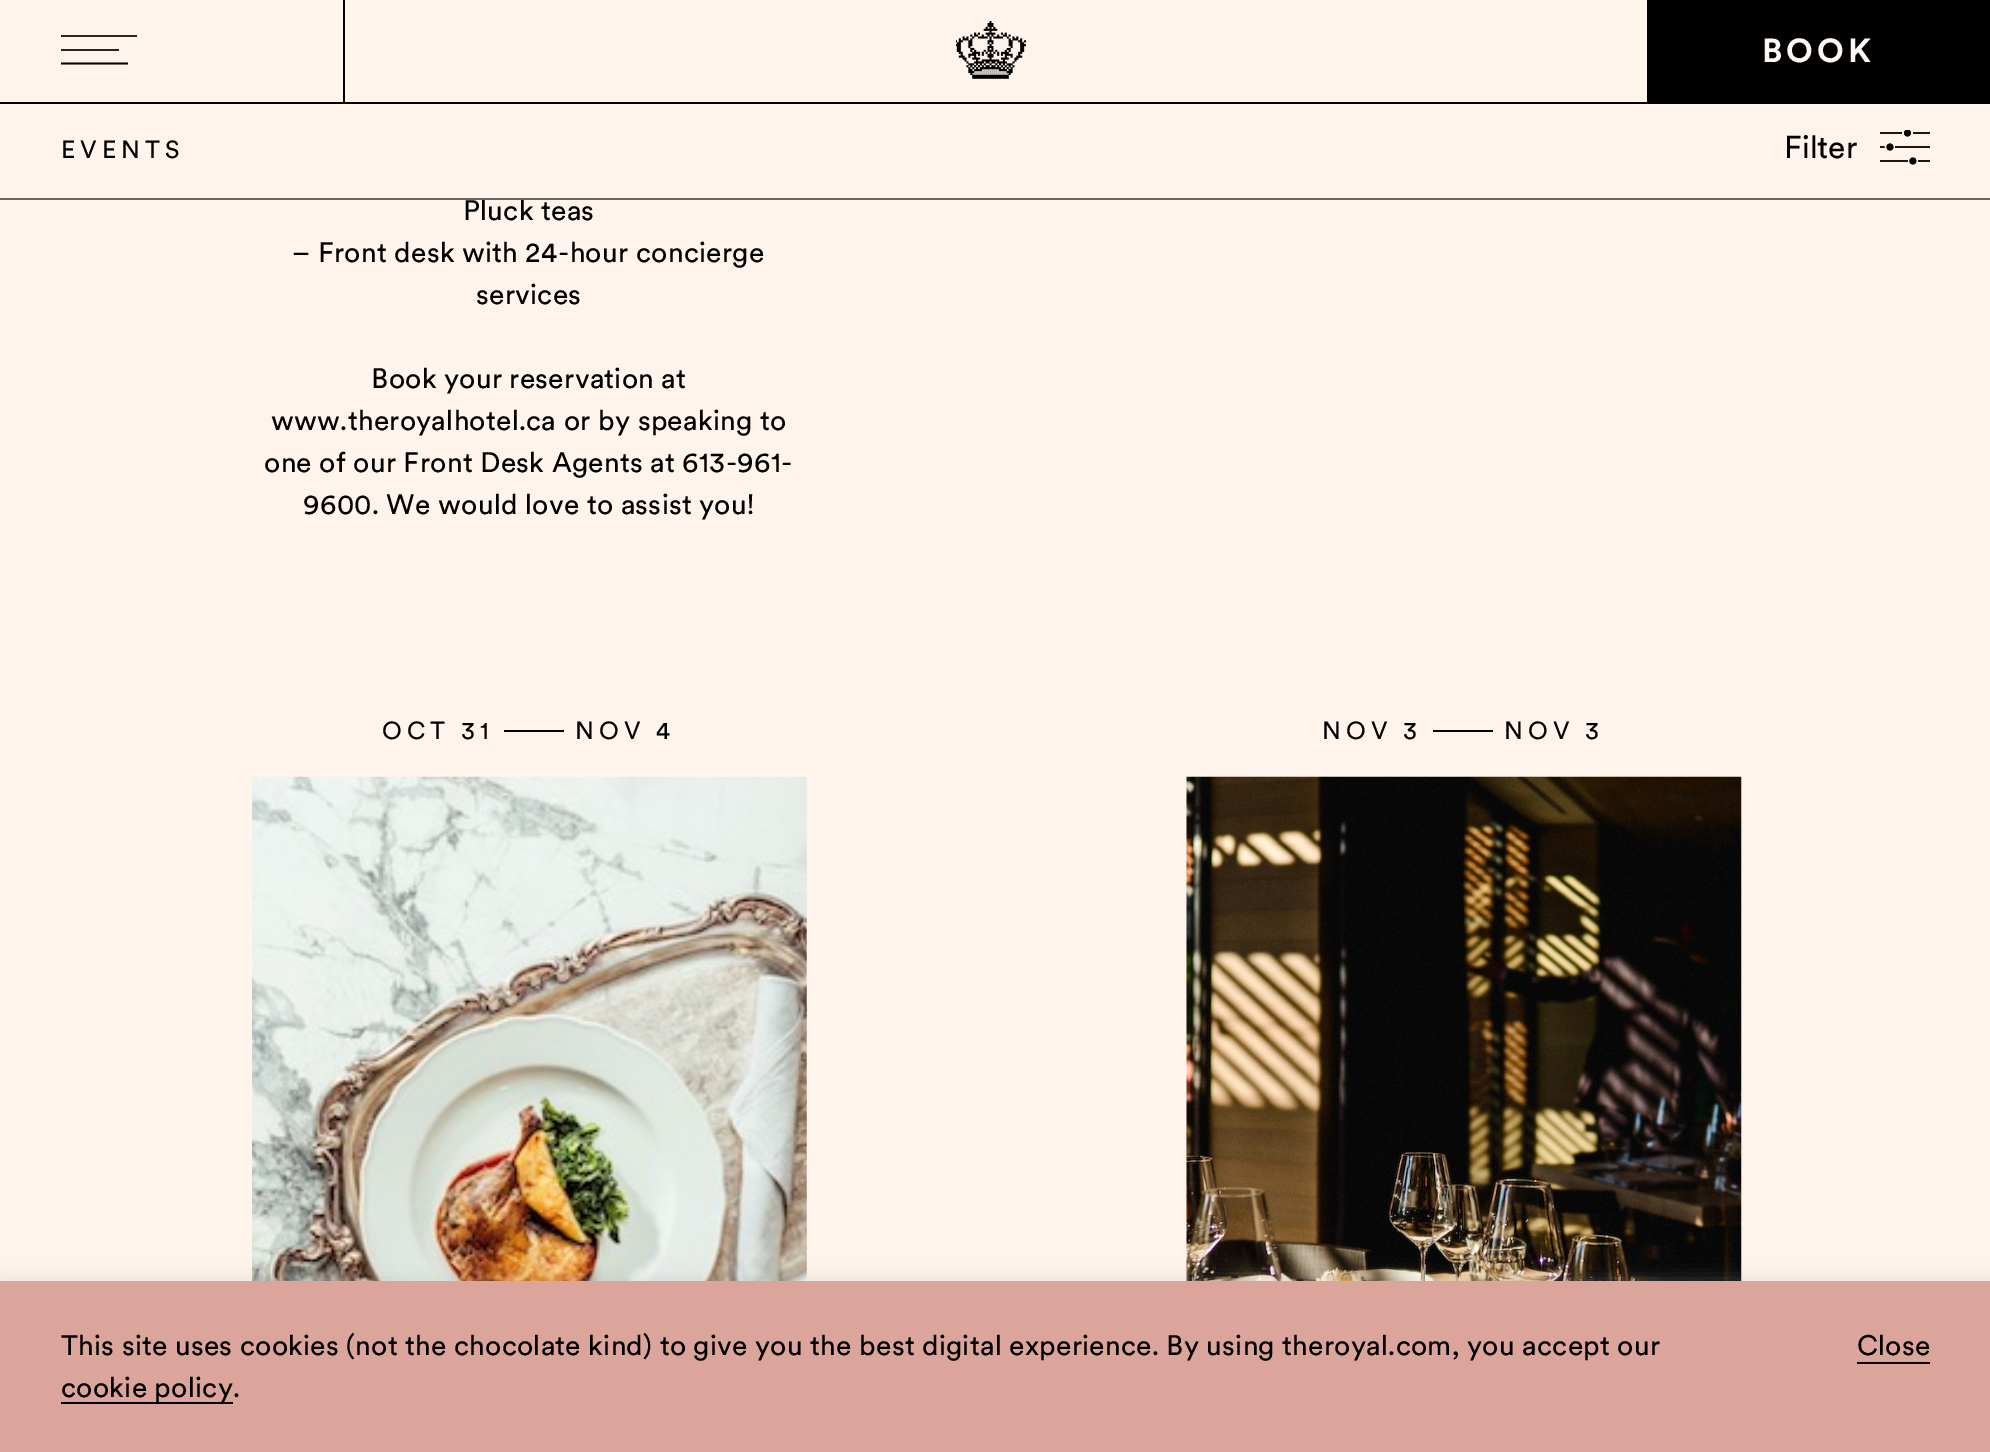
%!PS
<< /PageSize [1990 1452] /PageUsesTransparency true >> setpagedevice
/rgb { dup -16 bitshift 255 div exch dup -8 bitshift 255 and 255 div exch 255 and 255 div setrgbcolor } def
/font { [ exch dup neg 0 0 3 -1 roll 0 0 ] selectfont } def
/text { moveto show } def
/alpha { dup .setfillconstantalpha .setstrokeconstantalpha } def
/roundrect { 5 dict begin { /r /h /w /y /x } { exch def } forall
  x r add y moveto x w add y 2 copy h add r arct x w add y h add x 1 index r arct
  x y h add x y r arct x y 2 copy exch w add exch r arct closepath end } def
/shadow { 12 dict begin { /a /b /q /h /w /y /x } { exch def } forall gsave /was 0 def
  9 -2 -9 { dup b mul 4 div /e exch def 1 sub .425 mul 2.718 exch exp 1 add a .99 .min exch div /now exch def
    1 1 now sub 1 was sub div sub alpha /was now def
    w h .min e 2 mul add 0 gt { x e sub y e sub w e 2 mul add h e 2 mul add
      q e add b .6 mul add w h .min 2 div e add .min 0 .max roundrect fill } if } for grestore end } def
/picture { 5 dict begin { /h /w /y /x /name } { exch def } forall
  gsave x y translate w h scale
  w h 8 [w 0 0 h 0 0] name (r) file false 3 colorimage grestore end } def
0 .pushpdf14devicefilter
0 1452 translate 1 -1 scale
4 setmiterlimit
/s1 { /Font-Regular 31.5 font 16#000000 rgb } def
16#FFF4EB rgb
0 0 1990 1452 rectfill
16#000000 rgb
0 102 1990 2 rectfill
343 0 2 102 rectfill
16#262523 rgb
61 35 76 2 rectfill
61 49 58 2 rectfill
16#000000 rgb
1.7 setlinewidth
128 63.5 moveto 61 63.5 lineto stroke
(pic1.raw) 956 21 70 58 picture
1647 0 343 102 rectfill
/Font-Bold 33 font
16#FFF8F2 rgb
1762 62 moveto 4 0 (BOOK) ashow
/Font-Regular 28 font
16#000000 rgb
463 220 moveto 0.28 0 (Pluck teas) ashow
16#656565 rgb
0 198 1990 2 rectfill
/Font-Regular 24.5 font
16#000000 rgb
61 158 moveto 5 0 (EVENTS) ashow
s1
(Filter) 1784 158 text
(pic2.raw) 1880 130 50 35 picture
/Font-Regular 28 font
292 262 moveto 0.28 0 (– Front desk with 24-hour concierge) ashow
476 304 moveto 0.28 0 (services) ashow
371 388 moveto 0.28 0 (Book your reservation at) ashow
271 430 moveto 0.28 0 (www.theroyalhotel.ca or by speaking to) ashow
264 472 moveto 0.28 0 (one of our Front Desk Agents at 613-961-) ashow
303 514 moveto 0.28 0 (9600. We would love to assist you!) ashow
/Font-Regular 24.5 font
382 739 moveto 5 0 (OCT 31) ashow
504 730 60 2 rectfill
575 739 moveto 5 0 (NOV 4) ashow
(pic3.raw) 252 776 555 505 picture
1322 739 moveto 5 0 (NOV 3) ashow
1433 730 60 2 rectfill
1504 739 moveto 5 0 (NOV 3) ashow
(pic4.raw) 1186 776 556 505 picture
16#ACABAB rgb
0 1279 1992 172 0 9 0.3 shadow
16#DCA59B rgb
0 1281 1990 171 rectfill
/Font-Regular 28 font
16#000000 rgb
61 1355 moveto 0.28 0 (This site uses cookies \(not the chocolate kind\) to give you the best digital experience. By using theroyal.com, you accept our) ashow
61 1397 moveto 0.28 0 (cookie policy) ashow
61 1402 172 2 rectfill
233 1397 moveto 0.28 0 (.) ashow
1857 1355 moveto 0.28 0 (Close) ashow
1857 1362 73 2 rectfill
.poppdf14devicefilter showpage
